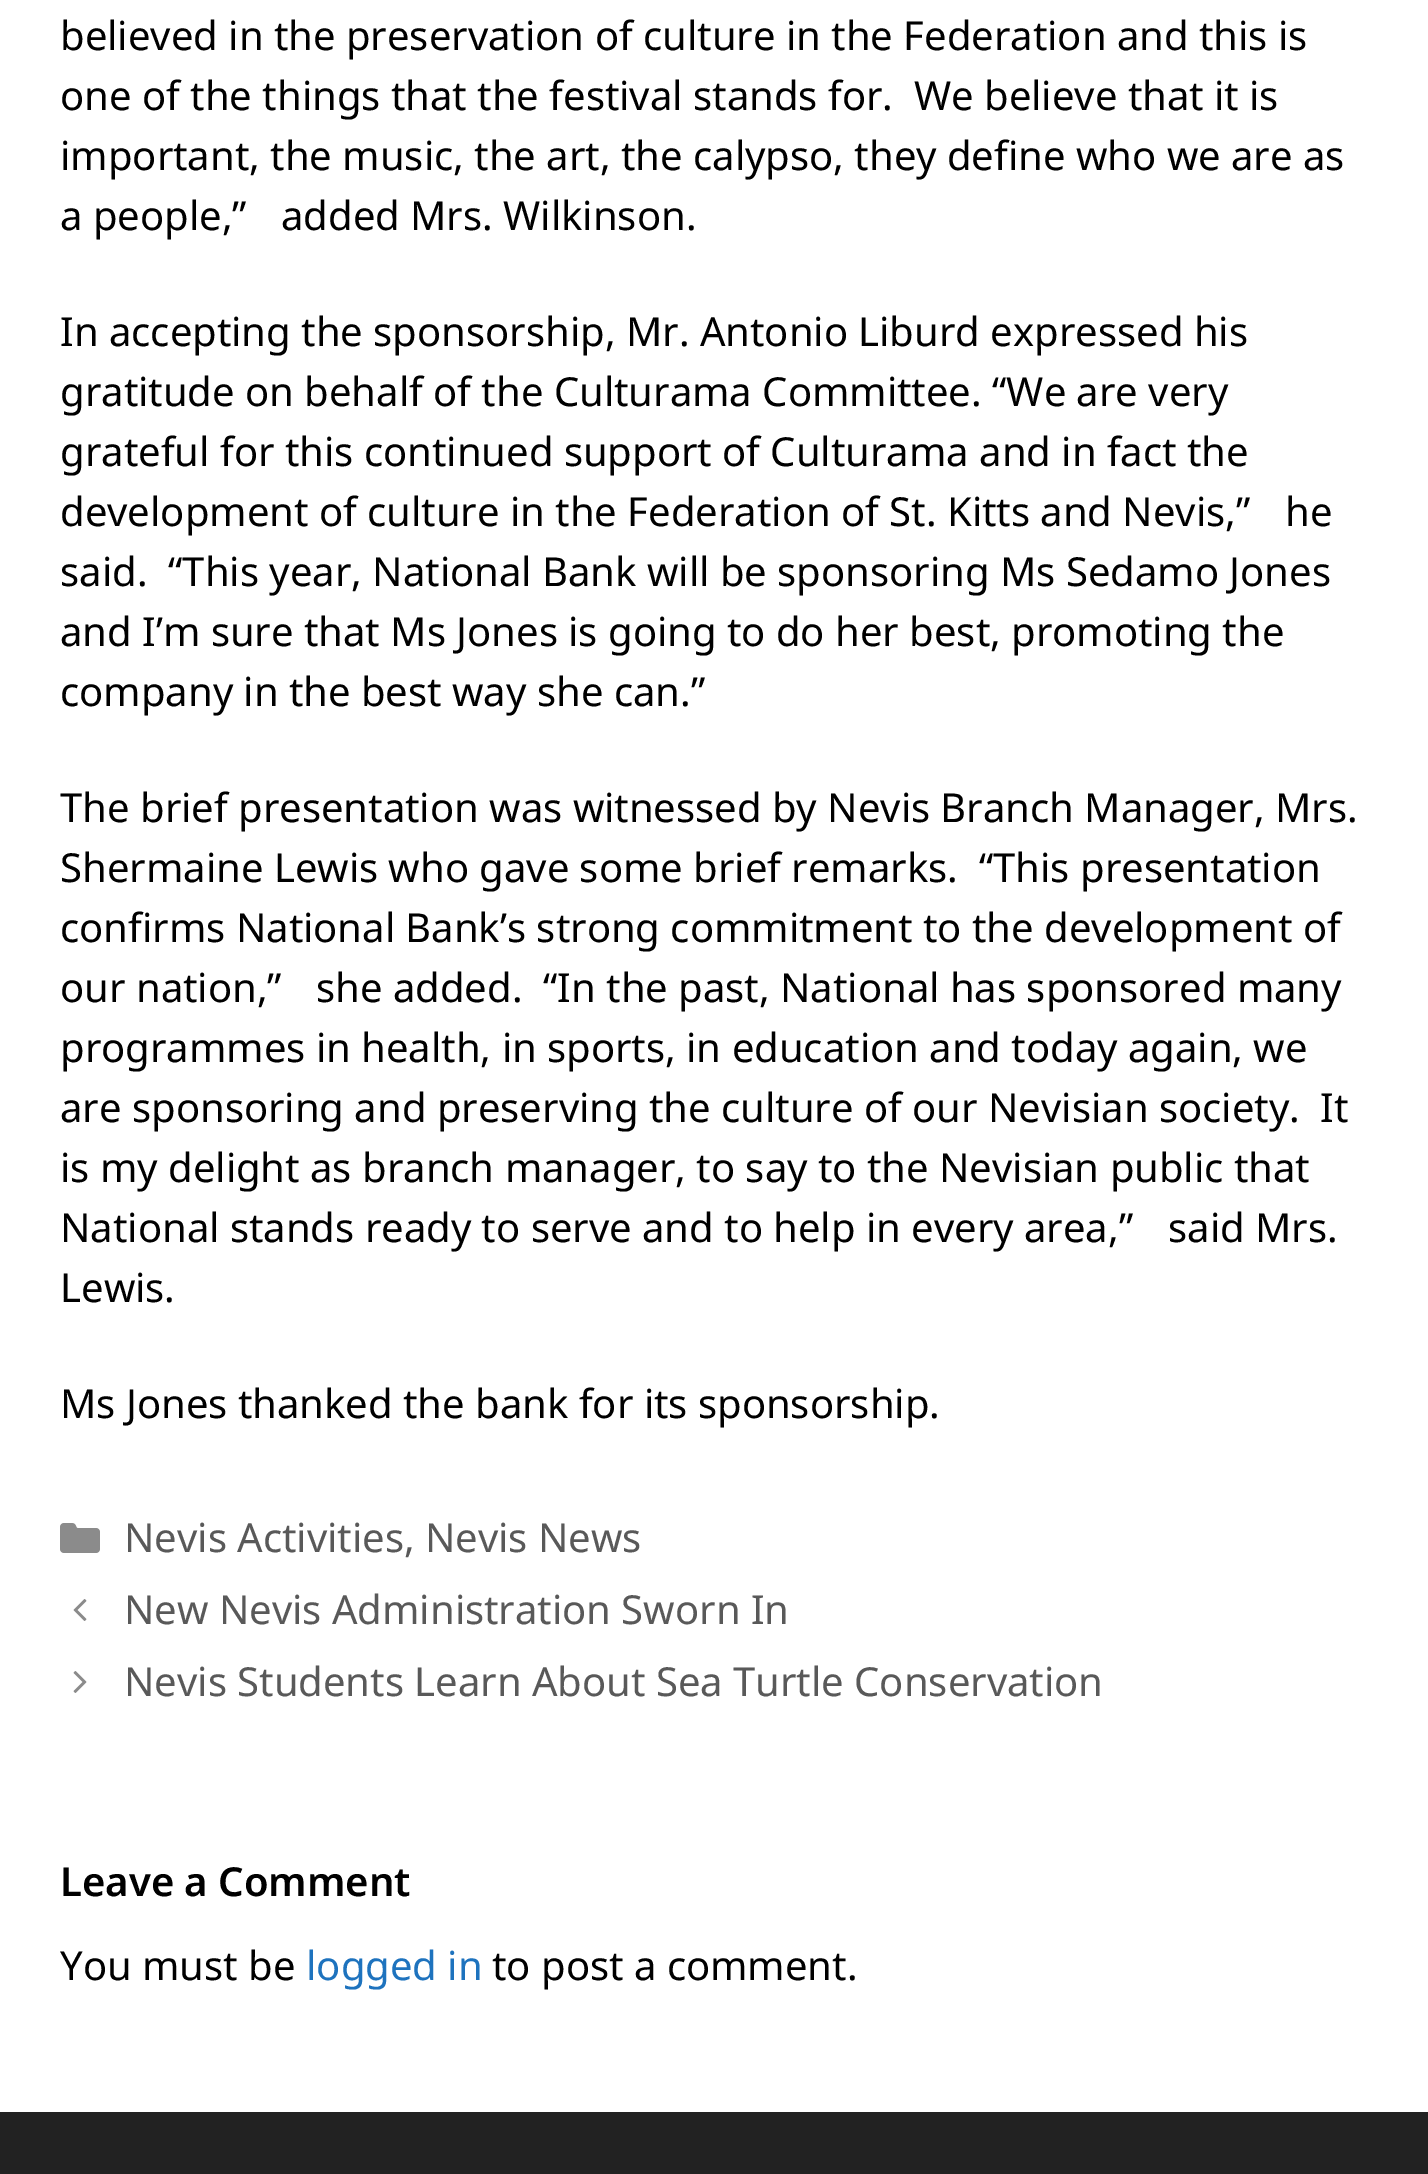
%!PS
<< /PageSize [1428 2174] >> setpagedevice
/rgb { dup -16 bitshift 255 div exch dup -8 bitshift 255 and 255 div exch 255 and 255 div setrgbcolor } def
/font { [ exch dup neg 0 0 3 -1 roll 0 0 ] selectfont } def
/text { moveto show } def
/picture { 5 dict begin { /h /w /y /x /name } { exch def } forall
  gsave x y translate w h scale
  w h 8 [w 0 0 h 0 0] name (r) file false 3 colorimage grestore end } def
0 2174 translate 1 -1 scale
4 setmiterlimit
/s1 { /NotoSans-Regular 40 font 16#000000 rgb } def
/s2 { /NotoSans-Regular 40 font 16#595959 rgb } def
/s3 { /NotoSans-SemiBold 40 font 16#000000 rgb } def
/s4 { /NotoSans-Regular 40 font 16#1E73BE rgb } def
16#FFFFFF rgb
0 0 1428 2174 rectfill
s1
(believed in the preservation of culture in the Federation and this is) 60 50 text
(one of the things that the festival stands for.  We believe that it is) 60 110 text
(important, the music, the art, the calypso, they define who we are as) 60 170 text
(a people,”) 60 230 text
(added Mrs. Wilkinson.) 281 230 text
(In accepting the sponsorship, Mr. Antonio Liburd expressed his) 60 346 text
(gratitude on behalf of the Culturama Committee. “We are very) 60 406 text
(grateful for this continued support of Culturama and in fact the) 60 466 text
(development of culture in the Federation of St. Kitts and Nevis,”) 60 526 text
(he) 1285 526 text
(said.  “This year, National Bank will be sponsoring Ms Sedamo Jones) 60 586 text
(and I’m sure that Ms Jones is going to do her best, promoting the) 60 646 text
(company in the best way she can.”) 60 706 text
(The brief presentation was witnessed by Nevis Branch Manager, Mrs.) 60 822 text
(Shermaine Lewis who gave some brief remarks.  “This presentation) 60 882 text
(confirms National Bank’s strong commitment to the development of) 60 942 text
(our nation,”) 60 1002 text
(she added.  “In the past, National has sponsored many) 316 1002 text
(programmes in health, in sports, in education and today again, we) 60 1062 text
(are sponsoring and preserving the culture of our Nevisian society.  It) 60 1122 text
(is my delight as branch manager, to say to the Nevisian public that) 60 1182 text
(National stands ready to serve and to help in every area,”) 60 1242 text
(said Mrs.) 1168 1242 text
(Lewis.) 60 1302 text
(Ms Jones thanked the bank for its sponsorship.) 60 1418 text
(pic1.raw) 60 1523 40 30 picture
s2
(Nevis Activities, Nevis News) 124 1552 text
(pic2.raw) 73 1599 14 22 picture
(New Nevis Administration Sworn In) 124 1624 text
(pic3.raw) 73 1671 14 22 picture
(Nevis Students Learn About Sea Turtle Conservation) 124 1696 text
s3
(Leave a Comment) 60 1896 text
s1
(You must be) 60 1980 text
s4
(logged in) 306 1980 text
s1
(to post a comment.) 492 1980 text
16#222222 rgb
0 2112 1428 62 rectfill
showpage
